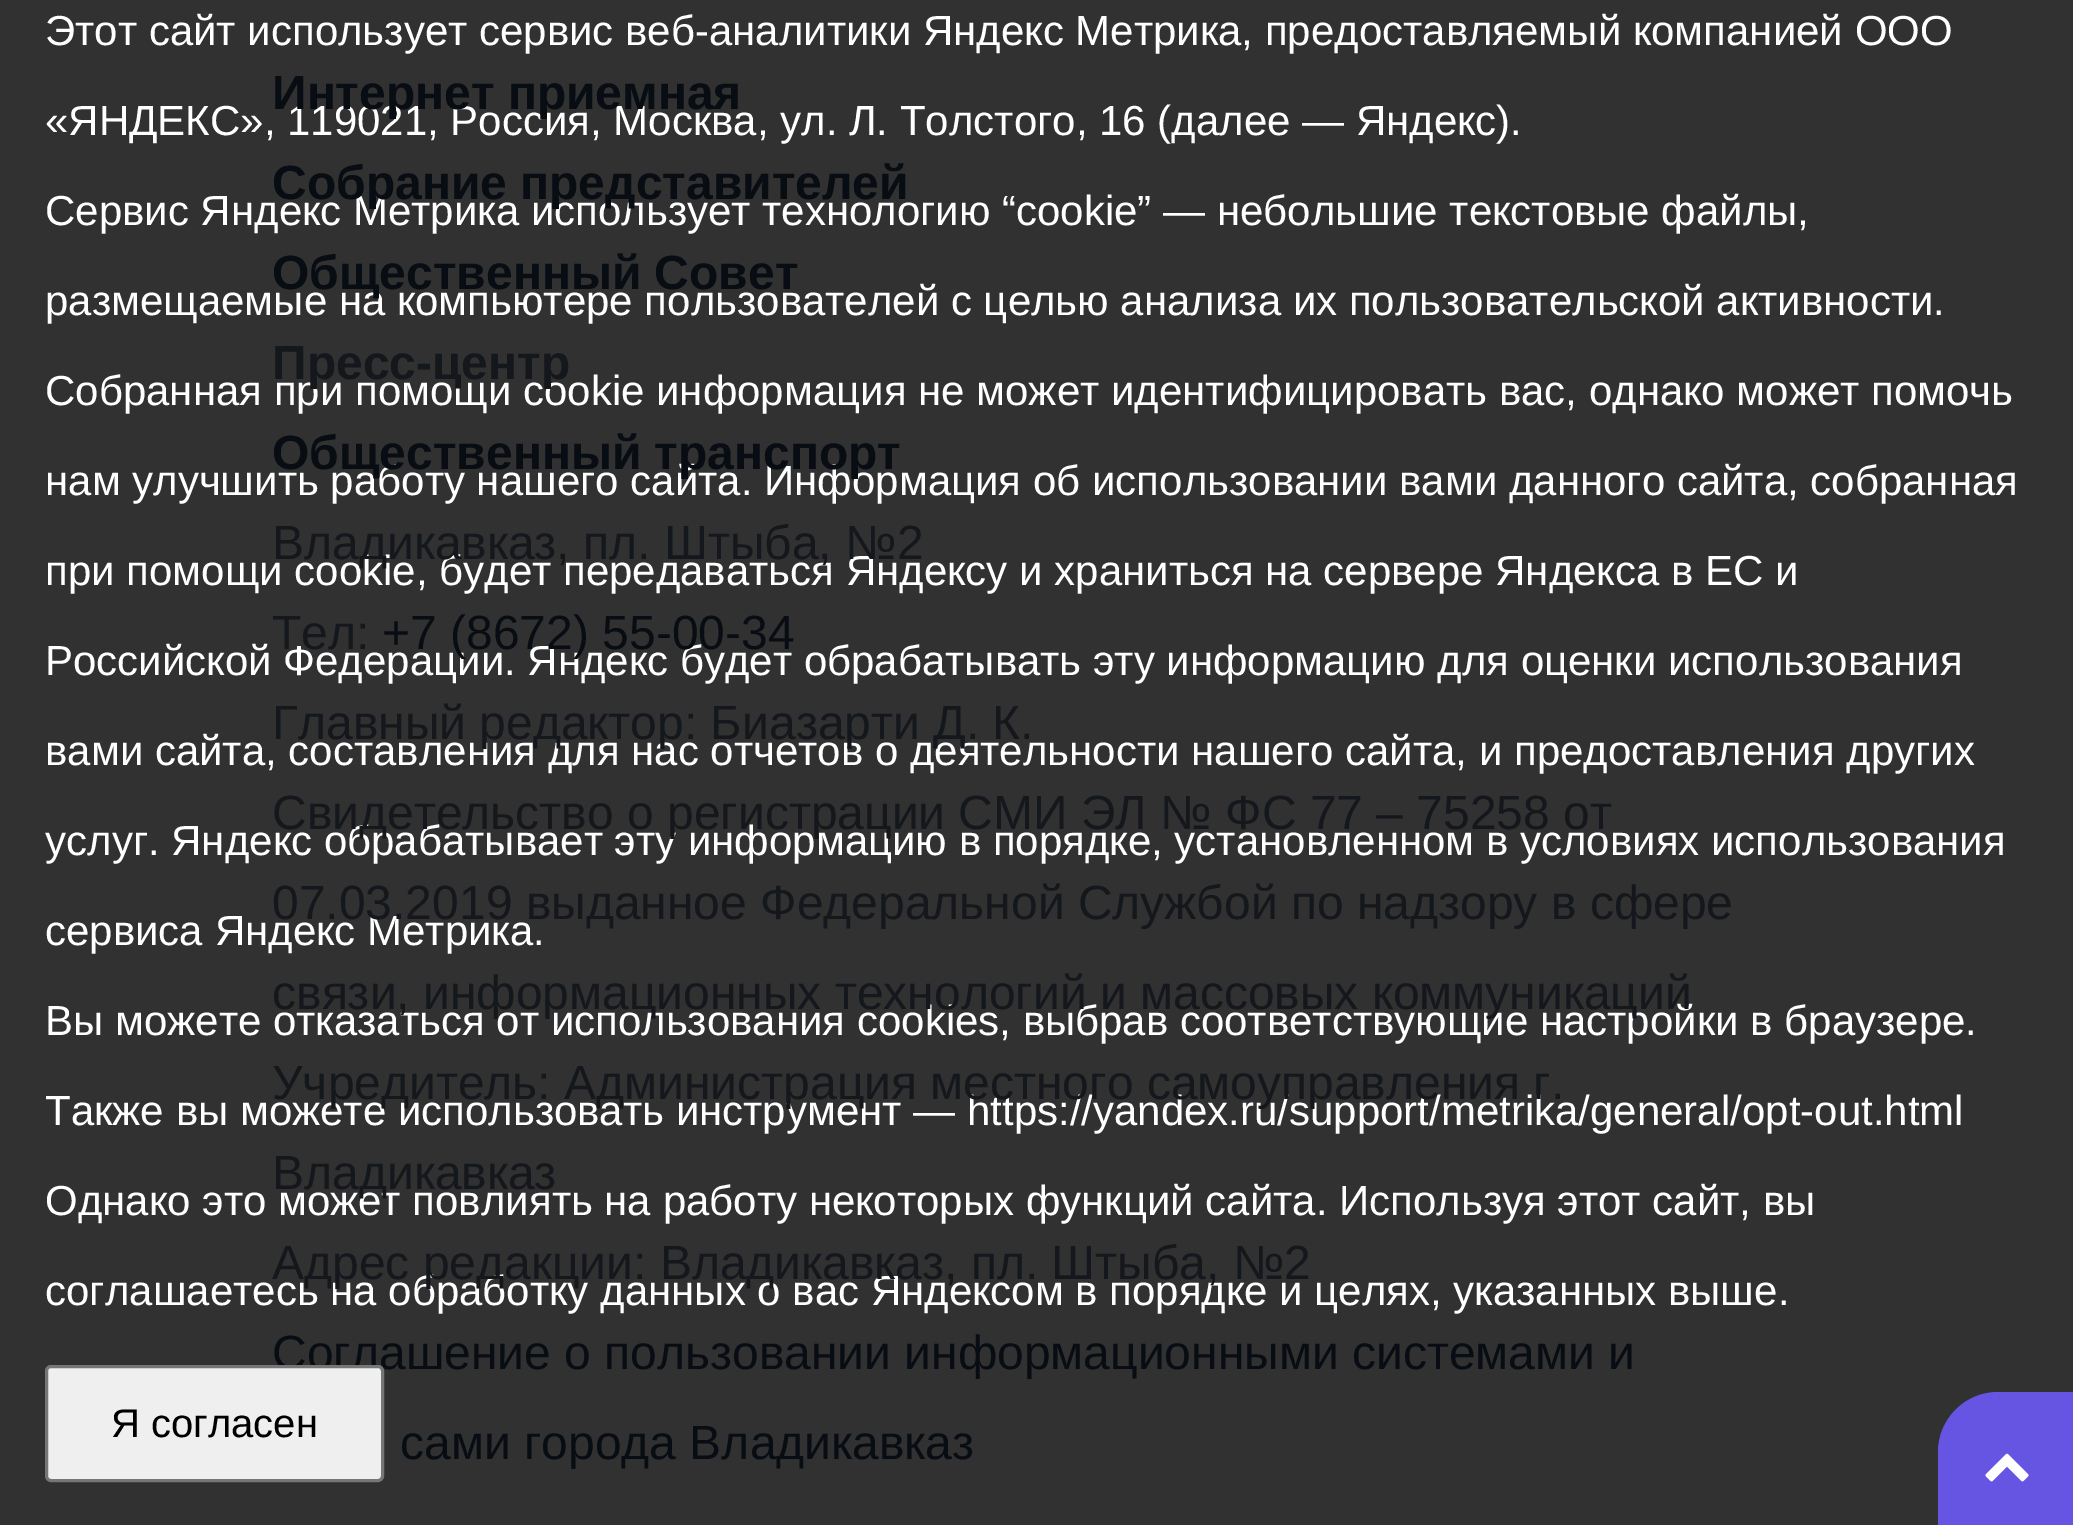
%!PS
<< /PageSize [2073 1525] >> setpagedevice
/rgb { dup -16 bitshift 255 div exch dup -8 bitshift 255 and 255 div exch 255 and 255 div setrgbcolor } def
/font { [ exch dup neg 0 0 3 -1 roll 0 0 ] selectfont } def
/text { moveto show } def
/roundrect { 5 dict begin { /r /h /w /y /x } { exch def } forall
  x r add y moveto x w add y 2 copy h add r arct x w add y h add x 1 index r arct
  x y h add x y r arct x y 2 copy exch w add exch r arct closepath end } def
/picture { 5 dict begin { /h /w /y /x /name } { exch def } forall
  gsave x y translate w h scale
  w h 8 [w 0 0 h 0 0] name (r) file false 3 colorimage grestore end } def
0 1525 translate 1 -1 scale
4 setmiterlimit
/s1 { /LiberationSans-Regular 42 font 16#FFFFFF rgb } def
/s2 { /LiberationSans-Regular 48 font 16#080C13 rgb } def
/s3 { /LiberationSans-Regular 40 font 16#000000 rgb } def
/s4 { /LiberationSans-Bold 48 font 16#080C13 rgb } def
/s5 { /LiberationSans-Bold 48 font 16#14171C rgb } def
/s6 { /LiberationSans-Regular 48 font 16#14171C rgb } def
16#313132 rgb
0 0 2073 1525 rectfill
s1
(Этот сайт использует сервис веб-аналитики Яндекс Метрика, предоставляемый компанией ООО) 45 45 text
(«ЯНДЕКС», 119021, Россия, Москва, ул. Л. Толстого, 16 \(далее — Яндекс\).) 45 135 text
(Сервис Яндекс Метрика использует технологию “cookie” — небольшие текстовые файлы,) 45 225 text
(размещаемые на компьютере пользователей с целью анализа их пользовательской активности.) 45 315 text
(Собранная при помощи cookie информация не может идентифицировать вас, однако может помочь) 45 405 text
(нам улучшить работу нашего сайта. Информация об использовании вами данного сайта, собранная) 45 495 text
(при помощи cookie, будет передаваться Яндексу и храниться на сервере Яндекса в ЕС и) 45 585 text
(Российской Федерации. Яндекс будет обрабатывать эту информацию для оценки использования) 45 675 text
(вами сайта, составления для нас отчетов о деятельности нашего сайта, и предоставления других) 45 765 text
(услуг. Яндекс обрабатывает эту информацию в порядке, установленном в условиях использования) 45 855 text
(сервиса Яндекс Метрика.) 45 945 text
(Вы можете отказаться от использования cookies, выбрав соответствующие настройки в браузере.) 45 1035 text
(Также вы можете использовать инструмент — https://yandex.ru/support/metrika/general/opt-out.html) 45 1125 text
(Однако это может повлиять на работу некоторых функций сайта. Используя этот сайт, вы) 45 1215 text
(соглашаетесь на обработку данных о вас Яндексом в порядке и целях, указанных выше.) 45 1305 text
s2
(Соглашение о пользовании информационными системами и) 272 1369 text
16#EFEFEF rgb
46.5 1366.5 336 114 4.5 roundrect gsave fill grestore
16#767676 rgb
3 setlinewidth
stroke
s3
(Я согласен) 111 1437 text
s4
(Интернет приемная) 272 109 text
(Собрание представителей) 272 199 text
(Общественный Совет) 272 289 text
s5
(Пресс-центр) 272 379 text
s4
(Общественный транспорт) 272 469 text
s6
(Владикавказ, пл. Штыба, №2) 272 559 text
(Тел:) 272 649 text
s2
(+7 \(8672\) 55-00-34) 382 649 text
s6
(Главный редактор: Биазарти Д. К.) 272 739 text
(Свидетельство о регистрации СМИ ЭЛ № ФС 77 – 75258 от) 272 829 text
(07.03.2019 выданное Федеральной Службой по надзору в сфере) 272 919 text
(связи, информационных технологий и массовых коммуникаций) 272 1009 text
(Учредитель: Администрация местного самоуправления г.) 272 1099 text
(Владикавказ) 272 1189 text
(Адрес редакции: Владикавказ, пл. Штыба, №2) 272 1279 text
s2
(сами города Владикавказ) 400 1459 text
16#6654E2 rgb
1998 1392 moveto 2073 1392 lineto 2073 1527 lineto 1938 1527 lineto 1938 1452 lineto 1938 1419 1965 1392 1998 1392 curveto closepath fill
(pic1.raw) 1985 1453 44 29 picture
showpage
